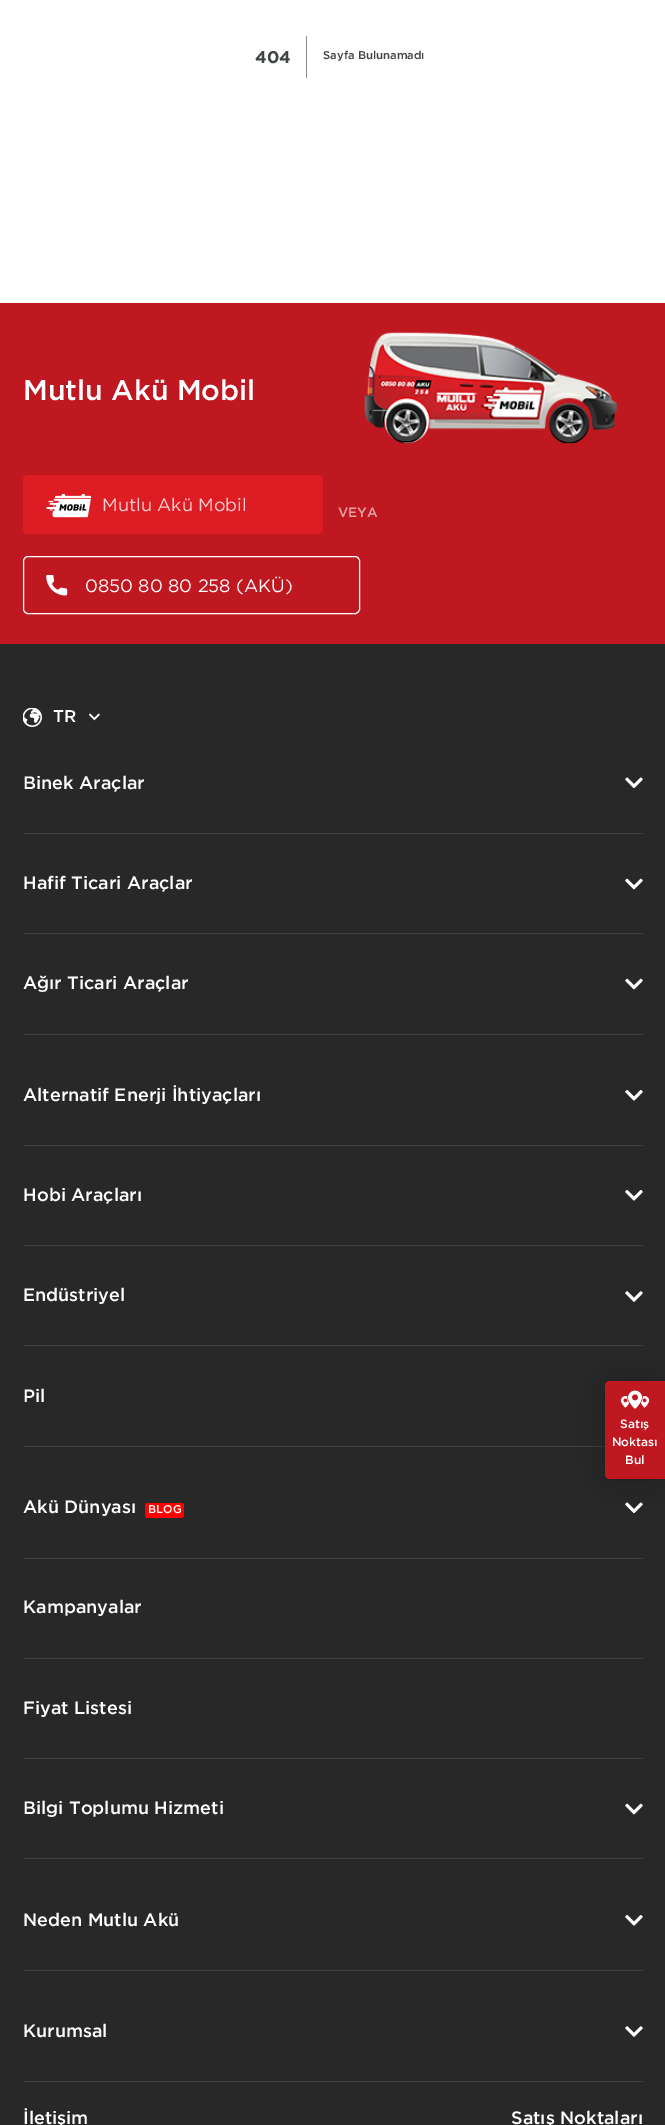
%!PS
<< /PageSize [665 2125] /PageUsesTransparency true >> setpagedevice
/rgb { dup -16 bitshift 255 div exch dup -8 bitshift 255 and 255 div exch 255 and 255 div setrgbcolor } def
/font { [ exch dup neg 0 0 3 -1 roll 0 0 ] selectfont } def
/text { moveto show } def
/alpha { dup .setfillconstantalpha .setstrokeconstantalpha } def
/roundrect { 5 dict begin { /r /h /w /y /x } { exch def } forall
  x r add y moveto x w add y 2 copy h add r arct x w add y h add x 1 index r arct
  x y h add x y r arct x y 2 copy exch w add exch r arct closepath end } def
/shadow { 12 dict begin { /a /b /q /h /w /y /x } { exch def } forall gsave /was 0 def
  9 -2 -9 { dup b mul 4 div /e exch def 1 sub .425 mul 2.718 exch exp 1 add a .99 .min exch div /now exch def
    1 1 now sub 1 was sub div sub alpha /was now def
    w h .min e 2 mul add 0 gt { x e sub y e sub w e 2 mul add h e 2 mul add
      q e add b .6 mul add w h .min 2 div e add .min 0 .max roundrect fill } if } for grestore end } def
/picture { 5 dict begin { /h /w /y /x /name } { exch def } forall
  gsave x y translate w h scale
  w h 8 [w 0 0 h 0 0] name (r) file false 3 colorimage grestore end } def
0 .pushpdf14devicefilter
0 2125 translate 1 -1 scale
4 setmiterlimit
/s1 { /Gotham-Bold 17 font 16#414546 rgb } def
/s2 { /Gotham-Medium 11.25 font 16#414546 rgb } def
/s3 { /Gotham-Medium 12 font 16#FFFFFF rgb } def
/s4 { /Gotham-Medium 28.5 font 16#FFFFFF rgb } def
/s5 { /Gotham-Regular 18 font 16#F8D2D3 rgb } def
/s6 { /Gotham-Medium 13.5 font 16#E6A3A6 rgb } def
/s7 { /Gotham-Regular 18 font 16#FFFFFF rgb } def
/s8 { /Gotham-Medium 17 font 16#FFFFFF rgb } def
/s9 { /Gotham-Medium 18 font 16#FFFFFF rgb } def
/s10 { /Gotham-Medium 11.25 font 16#FFFFFF rgb } def
16#FFFFFF rgb
0 0 665 2125 rectfill
16#8D8F90 rgb
306 36 1 42 rectfill
s1
(404) 255 63 text
s2
(Sayfa Bulunamadı) 323 59 text
16#282828 rgb
0 644 665 1481 rectfill
16#3C3F40 rgb
23 1345 620 1 rectfill
23 1446 582 1 rectfill
(pic7.raw) 625 1502 18 11 picture
16#171717 rgb
614 1391 42 80 0 15.5 1 shadow
16#C01820 rgb
610 1381 moveto 665 1381 lineto 665 1479 lineto 610 1479 lineto 607 1479 605 1477 605 1474 curveto 605 1386 lineto 605 1383 607 1381 610 1381 curveto closepath fill
(pic1.raw) 620 1390 30 19 picture
s3
(Satış) 620 1428 text
(Noktası) 612 1446 text
(Bul) 625 1464 text
16#C01820 rgb
0 303 665 341 rectfill
s4
(Mutlu Akü Mobil) 23 400 text
(pic2.raw) 364 332 253 112 picture
16#DE1C24 rgb
23 475 300 59 5 roundrect fill
(pic3.raw) 46 494 45 24 picture
s5
(Mutlu Akü Mobil) 102 511 text
s6
(VEYA) 338 517 text
16#FFFFFF rgb
23.5 556.5 336 57 4.5 roundrect stroke
(pic4.raw) 46 575 22 21 picture
s7
(0850 80 80 258 \(AKÜ\)) 85 592 text
(pic5.raw) 23 708 19 19 picture
s8
(TR) 53 722 text
(pic6.raw) 89 713 11 8 picture
16#3C3F40 rgb
23 833 620 1 rectfill
s9
(Binek Araçlar) 23 789 text
(pic7.raw) 625 777 18 11 picture
16#3C3F40 rgb
23 933 620 1 rectfill
s9
(Hafif Ticari Araçlar) 23 889 text
(pic8.raw) 625 878 18 12 picture
16#3C3F40 rgb
23 1034 620 1 rectfill
s9
(Ağır Ticari Araçlar) 23 989 text
(pic8.raw) 625 978 18 12 picture
16#3C3F40 rgb
23 1145 620 1 rectfill
s9
(Alternatif Enerji İhtiyaçları) 23 1101 text
(pic9.raw) 625 1090 18 11 picture
16#3C3F40 rgb
23 1245 620 1 rectfill
s9
(Hobi Araçları) 23 1201 text
(pic9.raw) 625 1190 18 11 picture
(Endüstriyel) 23 1301 text
(pic10.raw) 625 1291 18 11 picture
(Pil) 23 1402 text
16#3C3F40 rgb
23 1558 620 1 rectfill
s9
(Akü Dünyası) 23 1513 text
16#FF0000 rgb
145 1503 39 15 2.5 roundrect fill
s10
(BLOG) 148 1513 text
16#3C3F40 rgb
23 1658 620 1 rectfill
s9
(Kampanyalar) 23 1613 text
16#3C3F40 rgb
23 1758 620 1 rectfill
s9
(Fiyat Listesi) 23 1714 text
16#3C3F40 rgb
23 1858 620 1 rectfill
s9
(Bilgi Toplumu Hizmeti) 23 1814 text
(pic8.raw) 625 1803 18 12 picture
16#3C3F40 rgb
23 1970 620 1 rectfill
s9
(Neden Mutlu Akü) 23 1926 text
(pic9.raw) 625 1915 18 11 picture
16#3C3F40 rgb
23 2081 620 1 rectfill
s9
(Kurumsal) 23 2037 text
(pic10.raw) 625 2026 18 11 picture
(İletişim) 23 2124 text
(Satış Noktaları) 511 2124 text
.poppdf14devicefilter showpage
